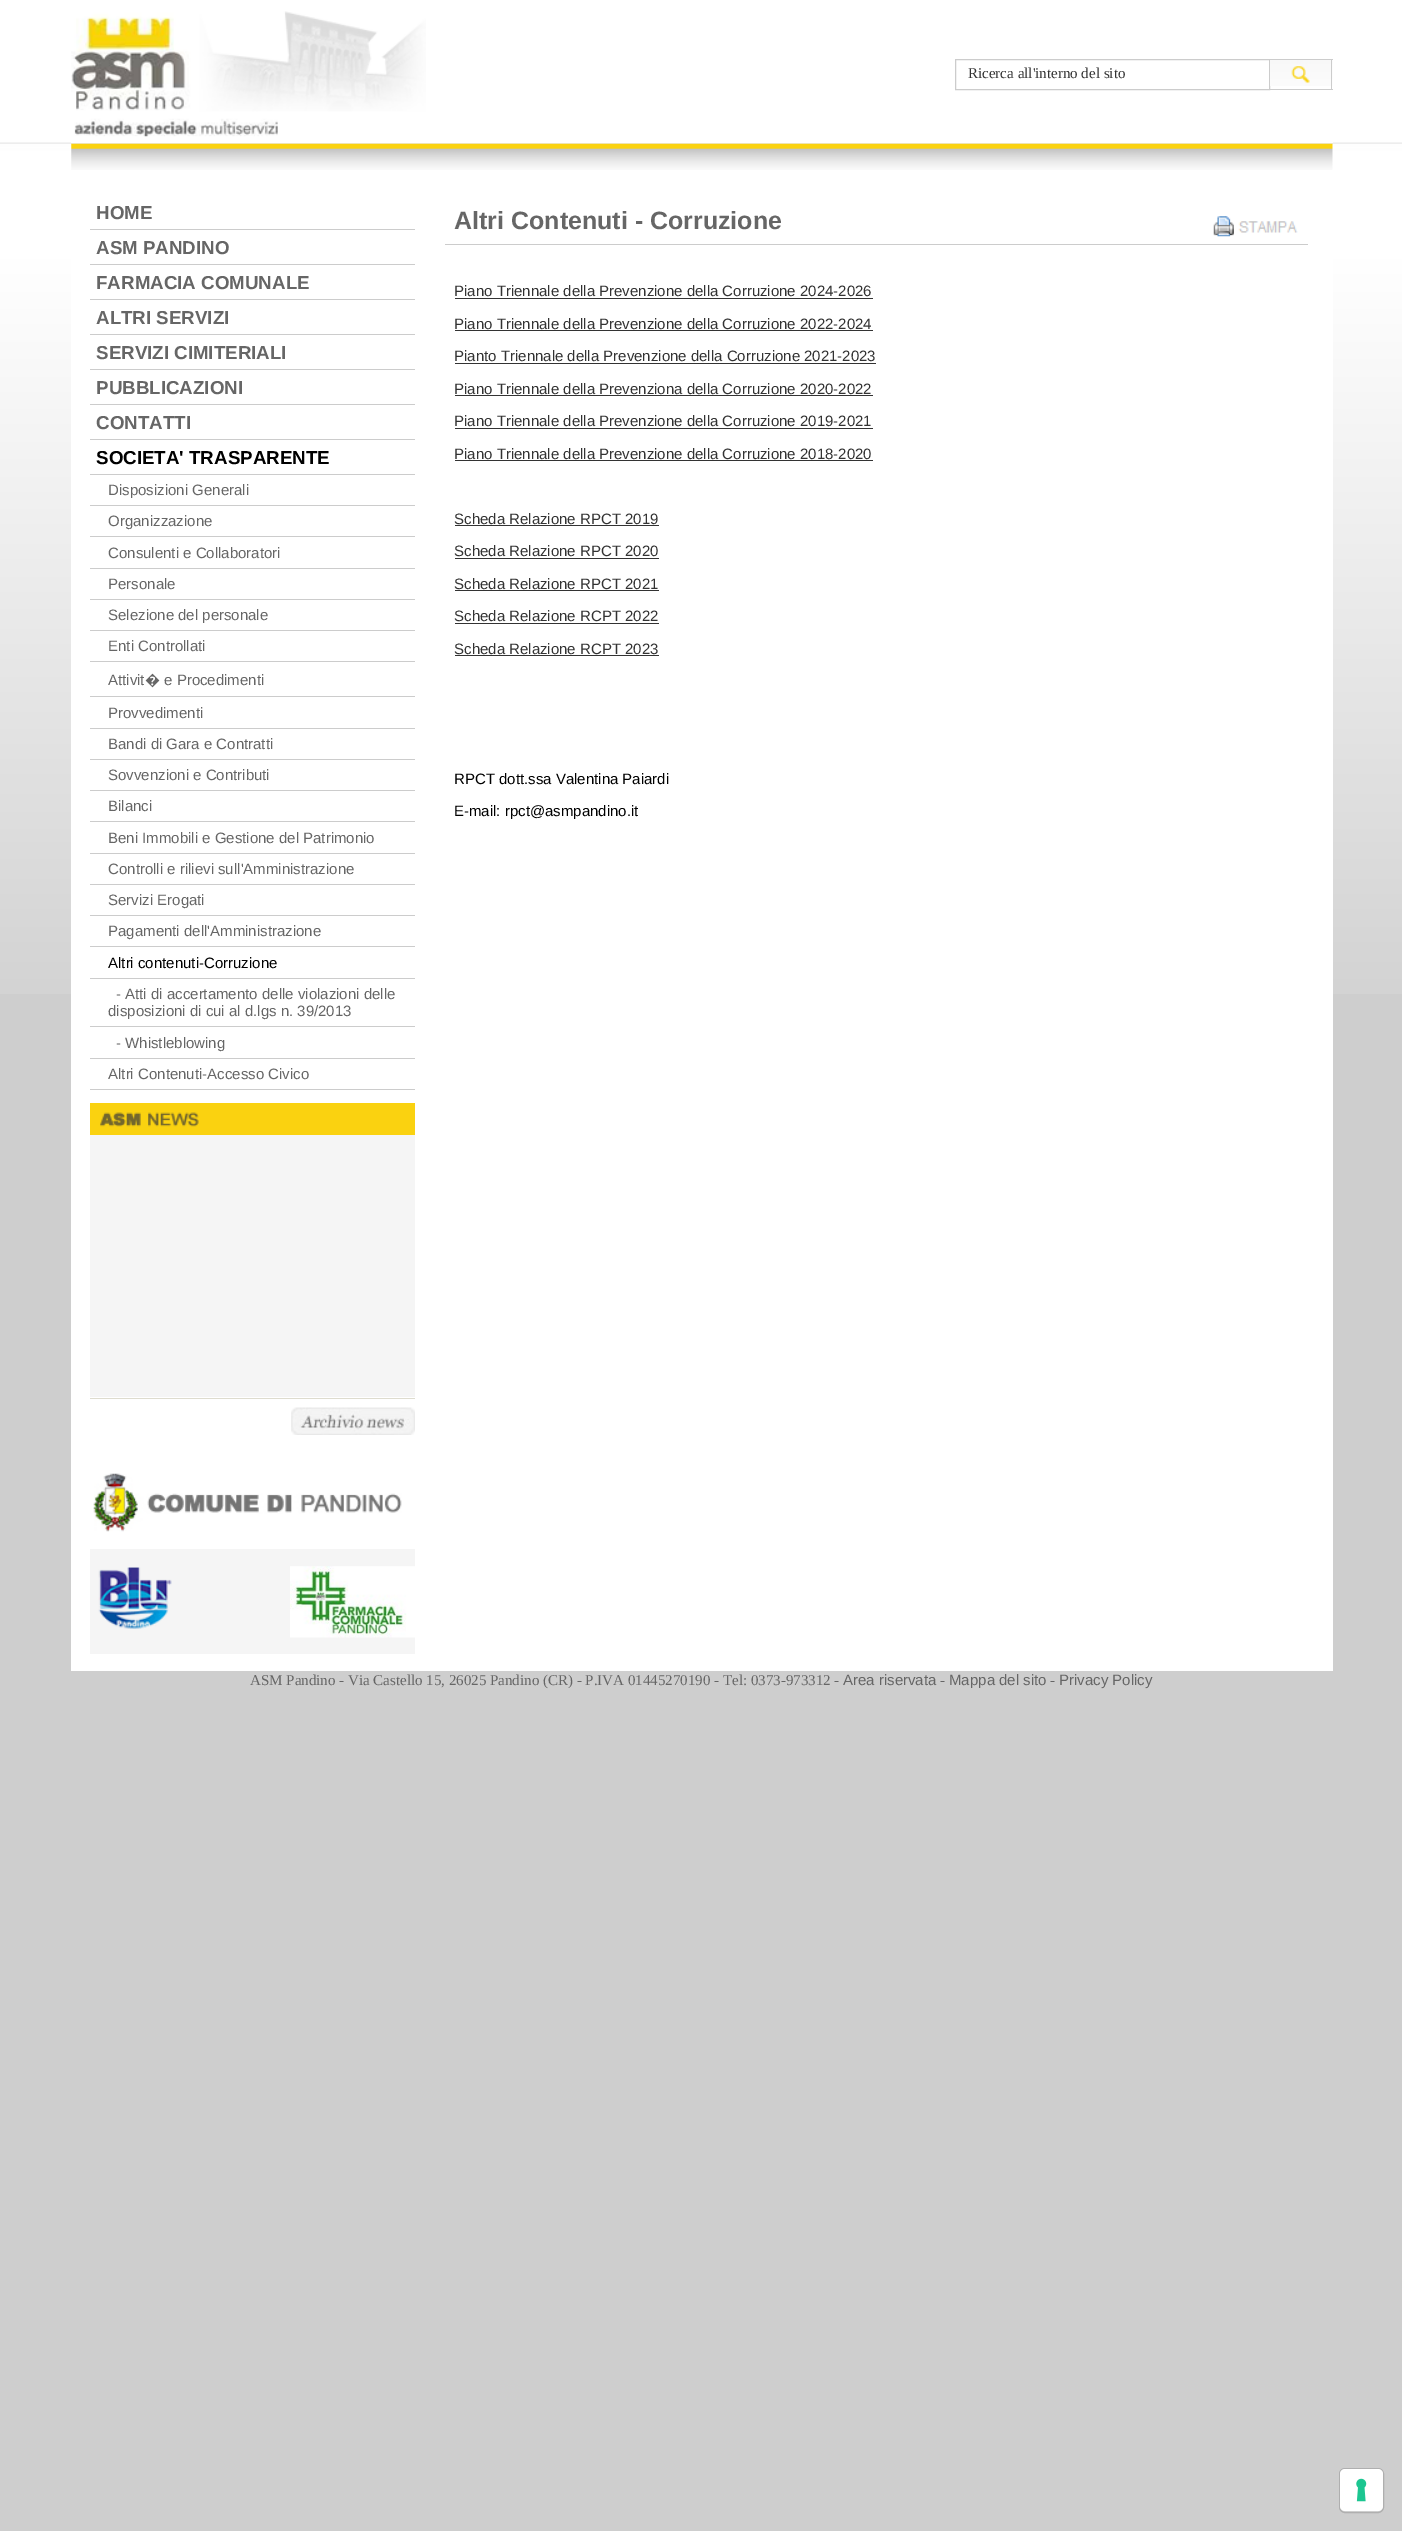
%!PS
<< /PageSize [1402 2531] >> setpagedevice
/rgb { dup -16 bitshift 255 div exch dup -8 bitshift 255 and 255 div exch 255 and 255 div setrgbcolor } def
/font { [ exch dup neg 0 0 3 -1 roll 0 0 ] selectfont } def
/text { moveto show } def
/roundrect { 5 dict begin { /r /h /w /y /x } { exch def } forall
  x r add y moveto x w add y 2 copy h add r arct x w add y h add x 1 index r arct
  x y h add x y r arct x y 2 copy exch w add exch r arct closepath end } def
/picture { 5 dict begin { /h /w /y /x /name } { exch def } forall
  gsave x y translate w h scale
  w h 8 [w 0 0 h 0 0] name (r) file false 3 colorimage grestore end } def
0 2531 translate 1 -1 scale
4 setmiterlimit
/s1 { /LiberationSerif-Regular 15 font 16#333333 rgb } def
/s2 { /LiberationSans-Bold 18.75 font 16#666666 rgb } def
/s3 { /LiberationSans-Bold 18.75 font 16#000000 rgb } def
/s4 { /LiberationSans-Regular 15 font 16#666666 rgb } def
/s5 { /NotoSans-Regular 15 font 16#666666 rgb } def
/s6 { /LiberationSans-Regular 15 font 16#000000 rgb } def
/s7 { /LiberationSans-Bold 25 font 16#666666 rgb } def
/s8 { /LiberationSans-Regular 15 font 16#333333 rgb } def
/s9 { /LiberationSerif-Regular 15 font 16#666666 rgb } def
16#CECECE rgb
0 0 1402 2531 rectfill
(pic1.raw) 0 0 1402 994 picture
16#FFFFFF rgb
71 142 1262 1529 rectfill
16#E8E8E8 rgb
71 143 1262 1 rectfill
(pic2.raw) 71 11 355 126 picture
16#CCCCCC rgb
955.5 59.5 314 30 rectstroke
s1
(Ricerca all'interno del sito) 968 78 text
(pic3.raw) 1270 60 63 26 picture
16#CCCCCC rgb
1270 59 63 1 rectfill
1331 59 1 31 rectfill
1270 89 63 1 rectfill
(pic4.raw) 71 143 1262 27 picture
90 229 325 1 rectfill
s2
(HOME) 96 219 text
16#CCCCCC rgb
90 264 325 1 rectfill
s2
(ASM PANDINO) 96 254 text
16#CCCCCC rgb
90 299 325 1 rectfill
s2
(FARMACIA COMUNALE) 96 289 text
16#CCCCCC rgb
90 334 325 1 rectfill
s2
(ALTRI SERVIZI) 96 324 text
16#CCCCCC rgb
90 369 325 1 rectfill
s2
(SERVIZI CIMITERIALI) 96 359 text
16#CCCCCC rgb
90 404 325 1 rectfill
s2
(PUBBLICAZIONI) 96 394 text
16#CCCCCC rgb
90 439 325 1 rectfill
s2
(CONTATTI) 96 429 text
16#CCCCCC rgb
90 474 325 1 rectfill
s3
(SOCIETA' TRASPARENTE) 96 464 text
16#CCCCCC rgb
90 505 325 1 rectfill
s4
(Disposizioni Generali) 108 495 text
16#CCCCCC rgb
90 536 325 1 rectfill
s4
(Organizzazione) 108 526 text
16#CCCCCC rgb
90 568 325 1 rectfill
s4
(Consulenti e Collaboratori) 108 558 text
16#CCCCCC rgb
90 599 325 1 rectfill
s4
(Personale) 108 589 text
16#CCCCCC rgb
90 630 325 1 rectfill
s4
(Selezione del personale) 108 620 text
16#CCCCCC rgb
90 661 325 1 rectfill
s4
(Enti Controllati) 108 651 text
16#CCCCCC rgb
90 696 325 1 rectfill
s4
(Attivit) 108 685 text
s5
(�) 145 685 text
s4
(e Procedimenti) 164 685 text
16#CCCCCC rgb
90 728 325 1 rectfill
s4
(Provvedimenti) 108 718 text
16#CCCCCC rgb
90 759 325 1 rectfill
s4
(Bandi di Gara e Contratti) 108 749 text
16#CCCCCC rgb
90 790 325 1 rectfill
s4
(Sovvenzioni e Contributi) 108 780 text
16#CCCCCC rgb
90 821 325 1 rectfill
s4
(Bilanci) 108 811 text
16#CCCCCC rgb
90 853 325 1 rectfill
s4
(Beni Immobili e Gestione del Patrimonio) 108 843 text
16#CCCCCC rgb
90 884 325 1 rectfill
s4
(Controlli e rilievi sull'Amministrazione) 108 874 text
16#CCCCCC rgb
90 915 325 1 rectfill
s4
(Servizi Erogati) 108 905 text
16#CCCCCC rgb
90 946 325 1 rectfill
s4
(Pagamenti dell'Amministrazione) 108 936 text
16#CCCCCC rgb
90 978 325 1 rectfill
s6
(Altri contenuti-Corruzione) 108 968 text
16#CCCCCC rgb
90 1026 325 1 rectfill
s4
(- Atti di accertamento delle violazioni delle) 116 999 text
(disposizioni di cui al d.lgs n. 39/2013) 108 1016 text
16#CCCCCC rgb
90 1058 325 1 rectfill
s4
(- Whistleblowing) 116 1048 text
16#CCCCCC rgb
90 1089 325 1 rectfill
s4
(Altri Contenuti-Accesso Civico) 108 1079 text
16#FAD210 rgb
90 1103 325 32 rectfill
(pic5.raw) 100 1112 99 15 picture
16#F5F5F5 rgb
90 1135 325 262 rectfill
16#DEDCCF rgb
90 1398 325 1 rectfill
(pic6.raw) 291 1407 124 28 picture
(pic7.raw) 93 1473 309 59 picture
16#F5F5F5 rgb
90 1549 325 105 rectfill
(pic8.raw) 98 1567 74 62 picture
(pic9.raw) 290 1566 125 72 picture
16#CCCCCC rgb
445 244 863 1 rectfill
s7
(Altri Contenuti - Corruzione) 454 229 text
(pic10.raw) 1213 216 85 21 picture
s8
(Piano Triennale della Prevenzione della Corruzione 2024-2026) 454 296 text
455 298 418 1 rectfill
(Piano Triennale della Prevenzione della Corruzione 2022-2024) 454 329 text
455 330 418 1 rectfill
(Pianto Triennale della Prevenzione della Corruzione 2021-2023) 454 361 text
455 363 421 1 rectfill
(Piano Triennale della Prevenziona della Corruzione 2020-2022) 454 394 text
455 395 418 1 rectfill
(Piano Triennale della Prevenzione della Corruzione 2019-2021) 454 426 text
455 428 418 1 rectfill
(Piano Triennale della Prevenzione della Corruzione 2018-2020) 454 459 text
455 460 418 1 rectfill
(Scheda Relazione RPCT 2019) 454 524 text
455 525 204 1 rectfill
(Scheda Relazione RPCT 2020) 454 556 text
455 558 204 1 rectfill
(Scheda Relazione RPCT 2021) 454 589 text
455 590 204 1 rectfill
(Scheda Relazione RCPT 2022) 454 621 text
455 623 204 1 rectfill
(Scheda Relazione RCPT 2023) 454 654 text
455 655 204 1 rectfill
s6
(RPCT dott.ssa Valentina Paiardi) 454 784 text
(E-mail: rpct@asmpandino.it) 454 816 text
s9
(ASM Pandino - Via Castello 15, 26025 Pandino \(CR\) - P.IVA 01445270190 - Tel: 0373-973312 -) 250 1685 text
s4
(Area riservata) 843 1685 text
s9
(-) 940 1685 text
s4
(Mappa del sito) 949 1685 text
s9
(-) 1050 1685 text
s4
(Privacy Policy) 1059 1685 text
16#AFAFAF rgb
1339.5 2468.5 44 44 5.5 roundrect stroke
16#FFFFFF rgb
1340 2469 43 42 5 roundrect fill
(pic11.raw) 1356 2478 11 24 picture
showpage
